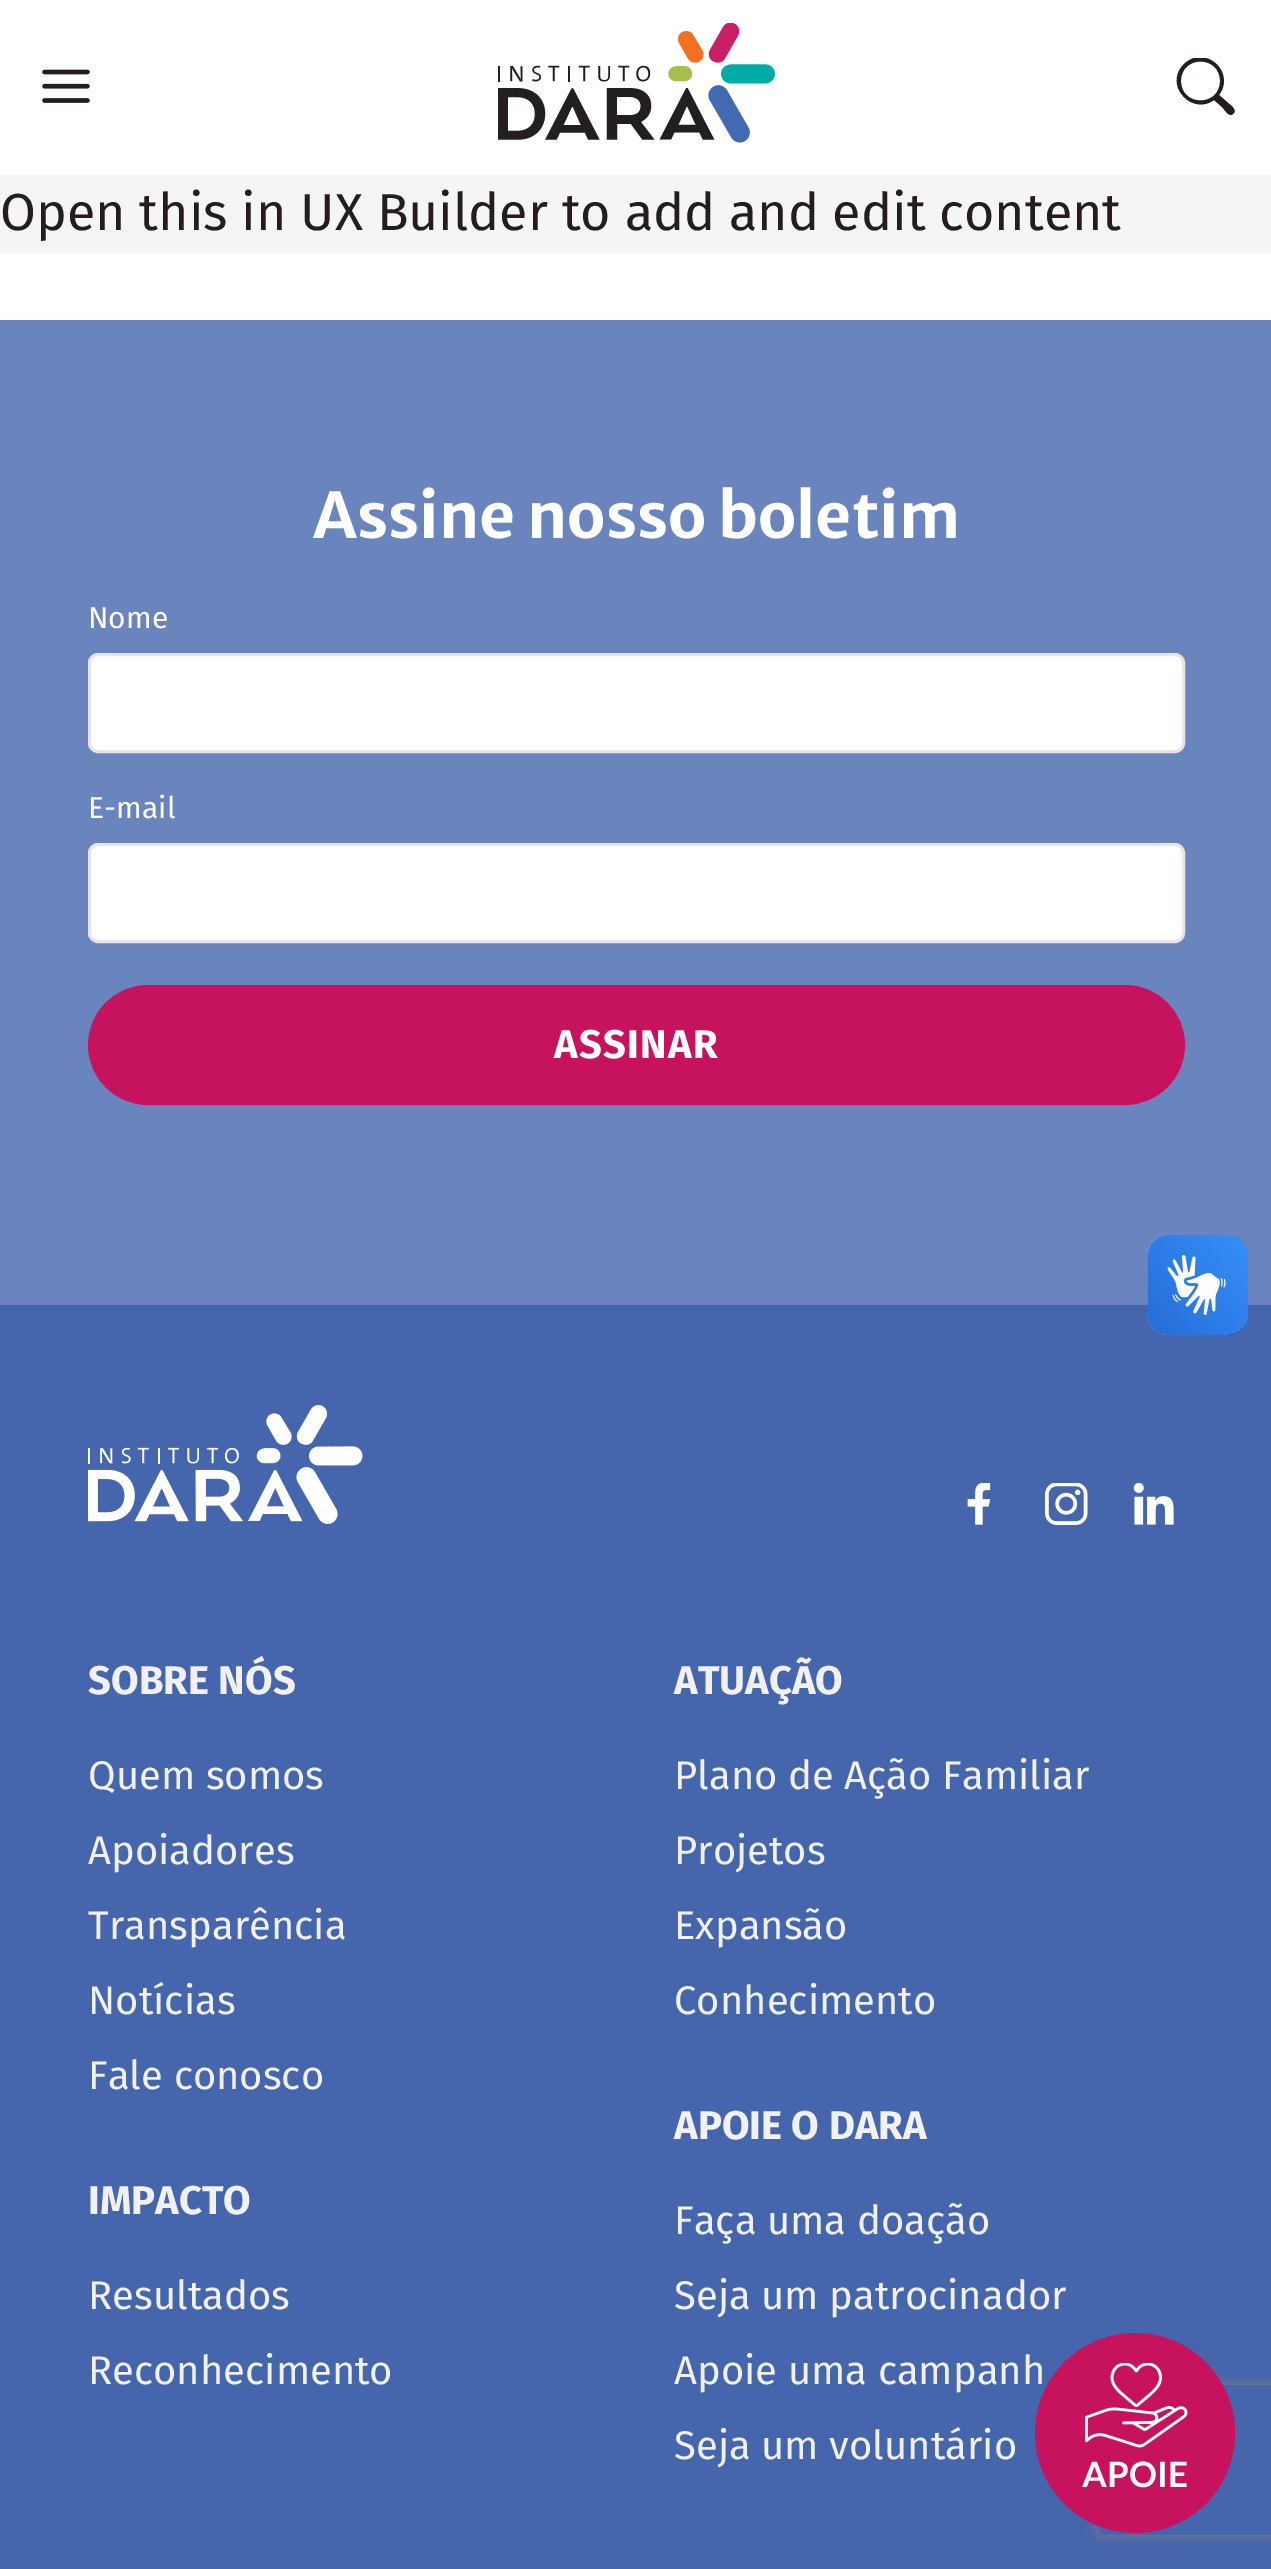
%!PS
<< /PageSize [1271 2569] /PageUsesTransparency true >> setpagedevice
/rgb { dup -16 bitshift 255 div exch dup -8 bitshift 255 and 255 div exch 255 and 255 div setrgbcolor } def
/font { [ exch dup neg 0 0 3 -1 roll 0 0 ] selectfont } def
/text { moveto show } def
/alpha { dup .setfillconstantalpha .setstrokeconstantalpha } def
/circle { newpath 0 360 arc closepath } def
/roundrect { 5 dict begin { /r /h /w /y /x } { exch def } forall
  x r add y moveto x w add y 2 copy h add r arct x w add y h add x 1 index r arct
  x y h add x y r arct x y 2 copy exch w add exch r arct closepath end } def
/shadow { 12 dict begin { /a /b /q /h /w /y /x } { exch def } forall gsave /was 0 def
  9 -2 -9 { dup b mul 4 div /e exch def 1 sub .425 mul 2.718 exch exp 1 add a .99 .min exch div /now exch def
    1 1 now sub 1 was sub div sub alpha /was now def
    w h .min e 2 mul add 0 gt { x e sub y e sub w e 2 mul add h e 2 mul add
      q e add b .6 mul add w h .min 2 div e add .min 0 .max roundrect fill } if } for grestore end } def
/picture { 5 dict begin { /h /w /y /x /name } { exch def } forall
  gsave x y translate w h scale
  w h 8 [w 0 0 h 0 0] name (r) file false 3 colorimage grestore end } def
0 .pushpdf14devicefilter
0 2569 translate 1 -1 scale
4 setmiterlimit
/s1 { /FiraSans-Regular 52 font 16#241D1F rgb } def
/s2 { /MerriweatherSans-Bold 62.5 font 16#FFFFFF rgb } def
/s3 { /FiraSans-Regular 30 font 16#FFFFFF rgb } def
/s4 { /FiraSans-Bold 40 font 16#F1F1F1 rgb } def
/s5 { /FiraSans-Regular 40 font 16#F1F1F1 rgb } def
/s6 { /Lato-Bold 35 font 16#FFFFFF rgb } def
16#FFFFFF rgb
0 0 1271 2569 rectfill
(pic1.raw) 42 69 48 34 picture
(pic2.raw) 498 23 277 120 picture
gsave
1175 58 60 57 rectclip
16#241D1F rgb
1219 95 moveto 1236 72 1205 44 1184 64 curveto 1163 85 1192 116 1214 100 curveto 1222 107 lineto 1224 109 1228 116 1232 115 curveto 1234 113 lineto 1237 109 1229 104 1227 102 curveto closepath 1220 81 moveto 1220 107 1181 107 1181 81 curveto 1181 55 1220 55 1220 81 curveto closepath fill
grestore
16#F5F5F5 rgb
0 175 1271 78 rectfill
s1
(Open this in UX Builder to add and edit content) 0 230 text
16#6A84BD rgb
0 320 1271 985 rectfill
s2
(Assine nosso boletim) 313 538 text
s3
(Nome) 88 628 text
89.5 654.5 1094 97 8.5 roundrect gsave fill grestore
16#EBE4E6 rgb
3 setlinewidth
stroke
s3
(E-mail) 88 818 text
89.5 844.5 1094 97 8.5 roundrect gsave fill grestore
16#EBE4E6 rgb
stroke
16#C7135D rgb
89.5 986.5 1094 117 58.5 roundrect gsave fill grestore
stroke
/FiraSans-Bold 40 font
16#FFFFFF rgb
554 1058 moveto 1.25 0 (ASSINAR) ashow
16#4565AD rgb
0 1305 1271 1264 rectfill
(pic3.raw) 88 1405 275 119 picture
(pic4.raw) 967 1483 24 42 picture
(pic5.raw) 1045 1483 43 42 picture
(pic6.raw) 1133 1483 41 42 picture
s4
(SOBRE NÓS) 88 1694 text
s5
(Quem somos) 88 1789 text
(Apoiadores) 88 1864 text
(Transparência) 88 1939 text
(Notícias) 88 2014 text
(Fale conosco) 88 2089 text
s4
(IMPACTO) 88 2214 text
s5
(Resultados) 88 2309 text
(Reconhecimento) 88 2384 text
s4
(ATUAÇÃO) 674 1694 text
s5
(Plano de Ação Familiar) 674 1789 text
(Projetos) 674 1864 text
(Expansão) 674 1939 text
(Conhecimento) 674 2014 text
s4
(APOIE O DARA) 674 2139 text
s5
(Faça uma doação) 674 2234 text
(Seja um patrocinador) 674 2309 text
(Apoie uma campanh) 674 2384 text
(Seja um voluntário) 674 2459 text
gsave
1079 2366 moveto 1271 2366 lineto 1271 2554 lineto 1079 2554 lineto closepath 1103 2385 moveto 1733 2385 lineto 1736 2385 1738 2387 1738 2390 curveto 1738 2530 lineto 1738 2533 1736 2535 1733 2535 curveto 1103 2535 lineto 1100 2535 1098 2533 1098 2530 curveto 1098 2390 lineto 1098 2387 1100 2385 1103 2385 curveto closepath eoclip newpath
16#808080 rgb
1098 2385 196 150 5 6 1 shadow
grestore
16#C7135D rgb
1135 2433 100 circle fill
(pic7.raw) 1085 2363 103 85 picture
s6
(APOIE) 1082 2487 text
(pic8.raw) 1147 1235 101 100 picture
(pic9.raw) 1148 1235 100 100 picture
.poppdf14devicefilter showpage
